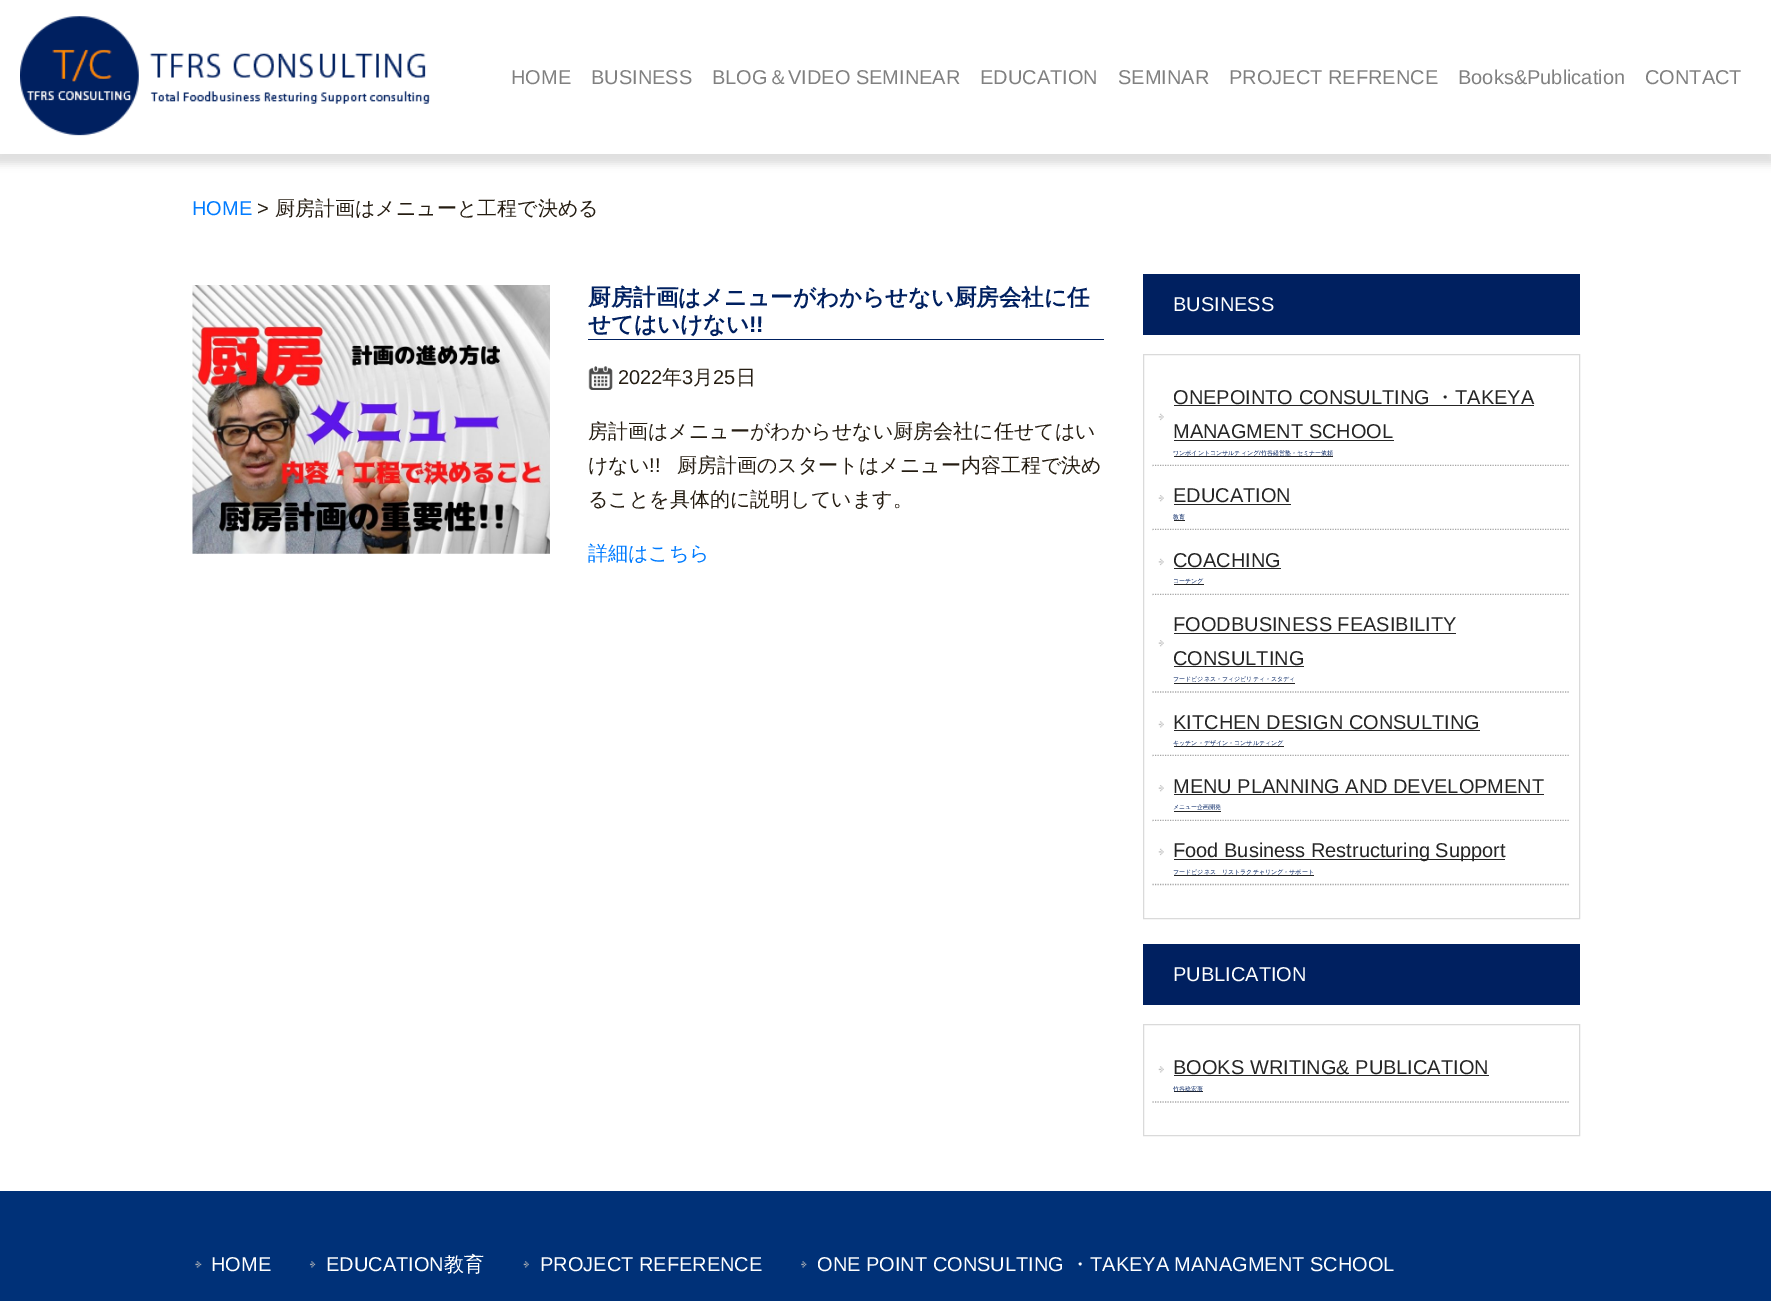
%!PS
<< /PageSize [1771 1301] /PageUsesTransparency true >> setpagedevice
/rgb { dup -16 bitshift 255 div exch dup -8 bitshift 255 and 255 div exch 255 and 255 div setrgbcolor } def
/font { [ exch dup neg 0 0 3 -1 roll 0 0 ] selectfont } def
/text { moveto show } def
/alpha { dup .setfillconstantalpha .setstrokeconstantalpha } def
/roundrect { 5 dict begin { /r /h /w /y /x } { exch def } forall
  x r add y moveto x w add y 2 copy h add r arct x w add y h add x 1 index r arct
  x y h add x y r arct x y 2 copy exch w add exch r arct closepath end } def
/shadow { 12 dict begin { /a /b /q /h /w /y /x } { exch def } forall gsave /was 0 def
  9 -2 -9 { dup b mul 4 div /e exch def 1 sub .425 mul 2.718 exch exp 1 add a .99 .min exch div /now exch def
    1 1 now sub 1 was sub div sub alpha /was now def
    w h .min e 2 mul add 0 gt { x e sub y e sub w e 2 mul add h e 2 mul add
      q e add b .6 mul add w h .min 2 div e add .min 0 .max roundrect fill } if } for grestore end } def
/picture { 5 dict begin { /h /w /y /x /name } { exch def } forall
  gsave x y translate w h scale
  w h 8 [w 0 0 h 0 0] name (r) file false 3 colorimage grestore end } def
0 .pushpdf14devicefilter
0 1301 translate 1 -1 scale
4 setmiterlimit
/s1 { /LiberationSans-Regular 20 font 16#808080 rgb } def
/s2 { /WenQuanYiZenHei-Medium 20 font 16#808080 rgb } def
/s3 { /LiberationSans-Regular 20 font 16#007BFF rgb } def
/s4 { /LiberationSans-Regular 20 font 16#251D12 rgb } def
/s5 { /WenQuanYiZenHei-Medium 20 font 16#251D12 rgb } def
/s6 { /WenQuanYiZenHei-Bold 22.5 font 16#002060 rgb } def
/s7 { /LiberationSans-Bold 22.5 font 16#002060 rgb } def
/s8 { /WenQuanYiZenHei-Medium 20 font 16#007BFF rgb } def
/s9 { /LiberationSans-Regular 20 font 16#FFFFFF rgb } def
/s10 { /LiberationSans-Regular 20 font 16#252525 rgb } def
/s11 { /WenQuanYiZenHei-Medium 20 font 16#252525 rgb } def
/s12 { /WenQuanYiZenHei-Medium 6 font 16#002060 rgb } def
/s13 { /LiberationSans-Regular 6 font 16#002060 rgb } def
/s14 { /WenQuanYiZenHei-Medium 20 font 16#FFFFFF rgb } def
16#FFFFFF rgb
0 0 1771 1301 rectfill
16#DEDEDE rgb
-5 3 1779 161 0 4 1 shadow
16#FFFFFF rgb
0 0 1771 154 rectfill
(pic1.raw) 20 16 410 120 picture
s1
(HOME) 511 84 text
(BUSINESS) 591 84 text
(BLOG) 712 84 text
s2
(＆) 768 84 text
s1
(VIDEO SEMINEAR) 788 84 text
(EDUCATION) 980 84 text
(SEMINAR) 1118 84 text
(PROJECT REFRENCE) 1229 84 text
(Books&Publication) 1458 84 text
(CONTACT) 1645 84 text
s3
(HOME) 192 215 text
s4
(>) 257 215 text
s5
(厨房計画はメニューと工程で決める) 275 215 text
(pic2.raw) 192 285 358 269 picture
16#002060 rgb
588 339 516 1 rectfill
s6
(厨房計画はメニューがわからせない厨房会社に任) 588 305 text
(せてはいけない) 588 332 text
s7
(!!) 749 332 text
(pic3.raw) 588 366 25 24 picture
s4
(2022) 618 384 text
s5
(年) 662 384 text
s4
(3) 682 384 text
s5
(月) 693 384 text
s4
(25) 713 384 text
s5
(日) 736 384 text
(房計画はメニューがわからせない厨房会社に任せてはい) 588 438 text
(けない) 588 472 text
s4
(!!) 649 472 text
s5
(厨房計画のスタートはメニュー内容工程で決め) 677 472 text
(ることを具体的に説明しています。) 588 506 text
s8
(詳細はこちら) 588 560 text
16#002060 rgb
1143 274 437 61 rectfill
s9
(BUSINESS) 1173 311 text
16#DADADA rgb
1143.5 354.5 436 564 rectstroke
(pic4.raw) 1158 413 6 8 picture
16#A6A6A6 rgb
1.2 setlinewidth
[1.25 1.25] 0 setdash
1152.5 465.5 moveto 1570 465.5 lineto stroke
s10
(ONEPOINTO CONSULTING) 1173 404 text
1174 405 360 1 rectfill
s11
(・) 1435 404 text
s10
(TAKEYA) 1455 404 text
(MANAGMENT SCHOOL) 1173 438 text
1174 440 220 1 rectfill
s12
(ワンポイントコンサルティング) 1173 455 text
16#252525 rgb
1174 456 159 1 rectfill
s13
(/) 1259 455 text
s12
(竹谷経営塾・セミナー依頼) 1261 455 text
16#FFFFFF rgb
1153 466 416 1 rectfill
(pic5.raw) 1158 495 6 7 picture
16#A6A6A6 rgb
1152.5 529.5 moveto 1570 529.5 lineto stroke
s10
(EDUCATION) 1173 502 text
1174 504 117 1 rectfill
s12
(教育) 1173 519 text
16#252525 rgb
1174 520 11 1 rectfill
16#FFFFFF rgb
1153 530 416 1 rectfill
(pic4.raw) 1158 558 6 8 picture
16#A6A6A6 rgb
1152.5 594.5 moveto 1570 594.5 lineto stroke
s10
(COACHING) 1173 567 text
1174 568 107 1 rectfill
s12
(コーチング) 1173 583 text
16#252525 rgb
1174 584 30 1 rectfill
16#FFFFFF rgb
1153 595 416 1 rectfill
(pic5.raw) 1158 640 6 7 picture
16#A6A6A6 rgb
1152.5 692 moveto 1570 692 lineto stroke
s10
(FOODBUSINESS FEASIBILITY) 1173 631 text
1174 633 282 1 rectfill
(CONSULTING) 1173 665 text
1174 666 130 1 rectfill
s12
(フードビジネス・フィジビリティ・スタディ) 1173 681 text
16#252525 rgb
1174 683 121 1 rectfill
(pic6.raw) 1158 721 6 7 picture
16#A6A6A6 rgb
1152.5 755.5 moveto 1570 755.5 lineto stroke
s10
(KITCHEN DESIGN CONSULTING) 1173 729 text
1174 730 306 1 rectfill
s12
(キッチン・デザイン・コンサルティング) 1173 745 text
16#252525 rgb
1174 746 110 1 rectfill
16#FFFFFF rgb
1153 756 416 1 rectfill
(pic5.raw) 1158 785 6 7 picture
16#A6A6A6 rgb
1152.5 820.5 moveto 1570 820.5 lineto stroke
s10
(MENU PLANNING AND DEVELOPMENT) 1173 793 text
1174 794 370 1 rectfill
s12
(メニュー企画開発) 1173 809 text
16#252525 rgb
1174 811 47 1 rectfill
16#FFFFFF rgb
1153 821 416 1 rectfill
(pic4.raw) 1158 848 6 8 picture
16#A6A6A6 rgb
1152.5 884.5 moveto 1570 884.5 lineto stroke
16#252525 rgb
1174 859 331 1 rectfill
s10
(Food Business Restructuring Support) 1173 857 text
s12
(フードビジネス　リストラクチャリング・サポート) 1173 874 text
16#252525 rgb
1174 875 140 1 rectfill
16#002060 rgb
1143 944 437 61 rectfill
s9
(PUBLICATION) 1173 981 text
16#DADADA rgb
1 setlinewidth
[] 0 setdash
1143.5 1024.5 436 111 rectstroke
(pic6.raw) 1158 1066 6 7 picture
16#A6A6A6 rgb
1.2 setlinewidth
[1.25 1.25] 0 setdash
1152.5 1102 moveto 1570 1102 lineto stroke
s10
(BOOKS WRITING& PUBLICATION) 1173 1074 text
1174 1075 315 1 rectfill
1174 1091 29 1 rectfill
s12
(竹谷稔宏著) 1173 1091 text
16#003178 rgb
0 1191 1771 110 rectfill
(pic7.raw) 195 1261 7 7 picture
s9
(HOME) 211 1271 text
(pic8.raw) 309 1261 7 7 picture
(EDUCATION) 326 1271 text
s14
(教育) 444 1271 text
(pic9.raw) 523 1261 6 7 picture
s9
(PROJECT REFERENCE) 540 1271 text
(pic10.raw) 801 1261 6 7 picture
(ONE POINT CONSULTING) 817 1271 text
s14
(・) 1070 1271 text
s9
(TAKEYA MANAGMENT SCHOOL) 1090 1271 text
.poppdf14devicefilter showpage
